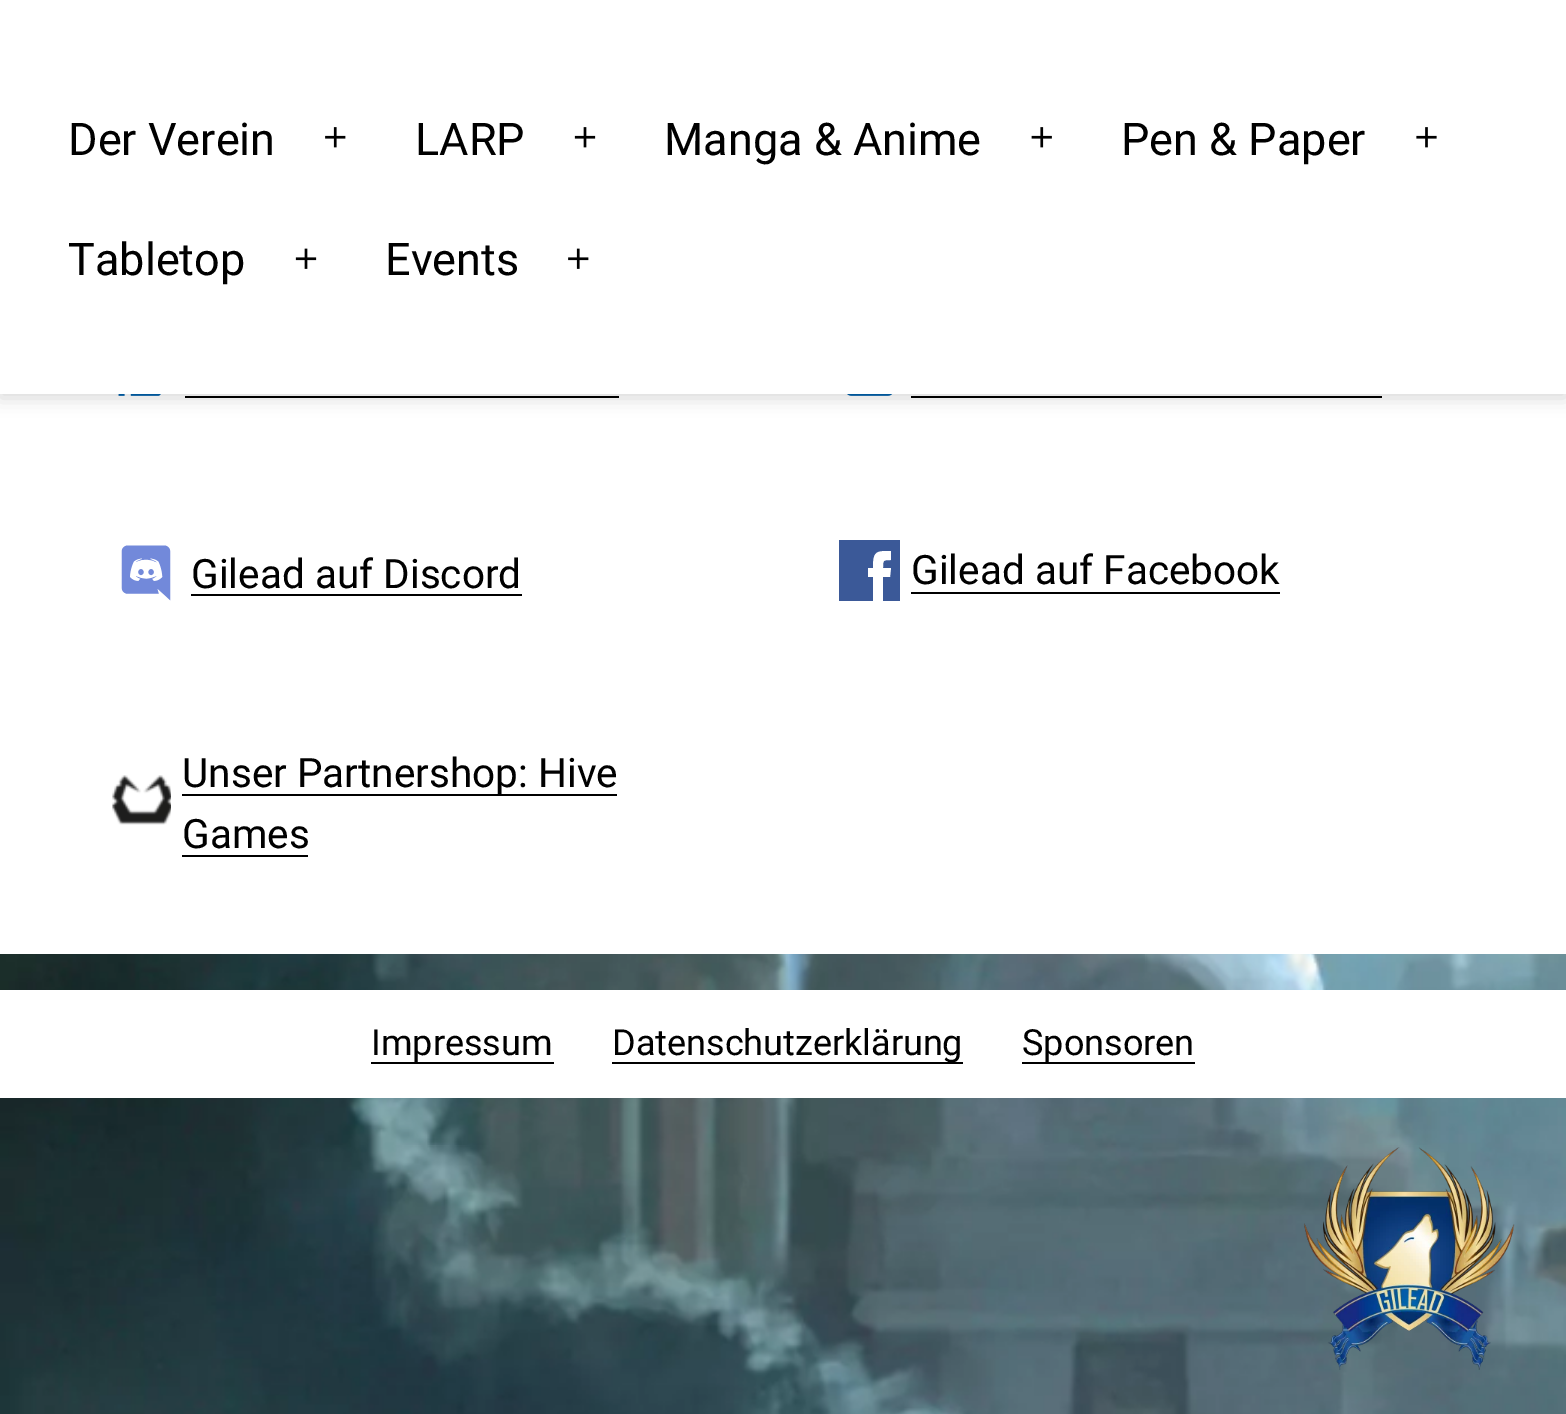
%!PS
<< /PageSize [1566 1414] /PageUsesTransparency true >> setpagedevice
/rgb { dup -16 bitshift 255 div exch dup -8 bitshift 255 and 255 div exch 255 and 255 div setrgbcolor } def
/font { [ exch dup neg 0 0 3 -1 roll 0 0 ] selectfont } def
/text { moveto show } def
/alpha { dup .setfillconstantalpha .setstrokeconstantalpha } def
/roundrect { 5 dict begin { /r /h /w /y /x } { exch def } forall
  x r add y moveto x w add y 2 copy h add r arct x w add y h add x 1 index r arct
  x y h add x y r arct x y 2 copy exch w add exch r arct closepath end } def
/shadow { 12 dict begin { /a /b /q /h /w /y /x } { exch def } forall gsave /was 0 def
  9 -2 -9 { dup b mul 4 div /e exch def 1 sub .425 mul 2.718 exch exp 1 add a .99 .min exch div /now exch def
    1 1 now sub 1 was sub div sub alpha /was now def
    w h .min e 2 mul add 0 gt { x e sub y e sub w e 2 mul add h e 2 mul add
      q e add b .6 mul add w h .min 2 div e add .min 0 .max roundrect fill } if } for grestore end } def
/picture { 5 dict begin { /h /w /y /x /name } { exch def } forall
  gsave x y translate w h scale
  w h 8 [w 0 0 h 0 0] name (r) file false 3 colorimage grestore end } def
0 .pushpdf14devicefilter
0 1414 translate 1 -1 scale
4 setmiterlimit
/s1 { /Roboto-Regular 45 font 16#000000 rgb } def
/s2 { /Roboto-Regular 40.5 font 16#000000 rgb } def
/s3 { /Roboto-Regular 36 font 16#000000 rgb } def
16#FFFFFF rgb
0 0 1566 1414 rectfill
(pic1.raw) 0 954 1566 460 picture
(pic8.raw) 118 394 43 2 picture
16#000000 rgb
185 396 434 2 rectfill
(pic9.raw) 847 394 46 2 picture
911 396 471 2 rectfill
0 5 1566 393 0 9 0.15 shadow
16#FFFFFF rgb
0 0 1566 394 rectfill
s1
(Der Verein) 68 155 text
(pic2.raw) 325 127 21 21 picture
(LARP) 415 155 text
(pic3.raw) 574 127 22 21 picture
(Manga & Anime) 664 155 text
(pic4.raw) 1031 127 21 21 picture
(Pen & Paper) 1121 155 text
(pic5.raw) 1416 127 21 21 picture
(Tabletop) 68 275 text
(pic6.raw) 295 248 22 21 picture
(Events) 385 275 text
(pic7.raw) 568 248 21 21 picture
(pic10.raw) 121 545 50 56 picture
s2
(Gilead auf Discord) 191 588 text
191 594 331 2 rectfill
16#3B5998 rgb
839 540 61 61 rectfill
gsave
839 540 61 61 rectclip
16#FFFFFF rgb
891 568 moveto 890 577 lineto 883 577 lineto 883 602 lineto 873 602 lineto 873 577 lineto 868 577 lineto 868 568 lineto 873 568 lineto 873 551 876 551 891 551 curveto 891 560 lineto 883 560 883 560 883 568 curveto closepath fill
grestore
s2
(Gilead auf Facebook) 911 584 text
911 592 369 2 rectfill
(pic11.raw) 112 775 59 50 picture
182 794 435 2 rectfill
(Unser Partnershop: Hive) 182 787 text
(Games) 182 848 text
182 855 126 2 rectfill
(pic12.raw) 1304 1147 211 223 picture
16#FFFFFF rgb
0 990 1566 108 rectfill
16#000000 rgb
371 1062 183 2 rectfill
s3
(Impressum) 371 1055 text
612 1062 351 2 rectfill
(Datenschutzerklärung) 612 1055 text
1022 1062 173 2 rectfill
(Sponsoren) 1022 1055 text
.poppdf14devicefilter showpage
